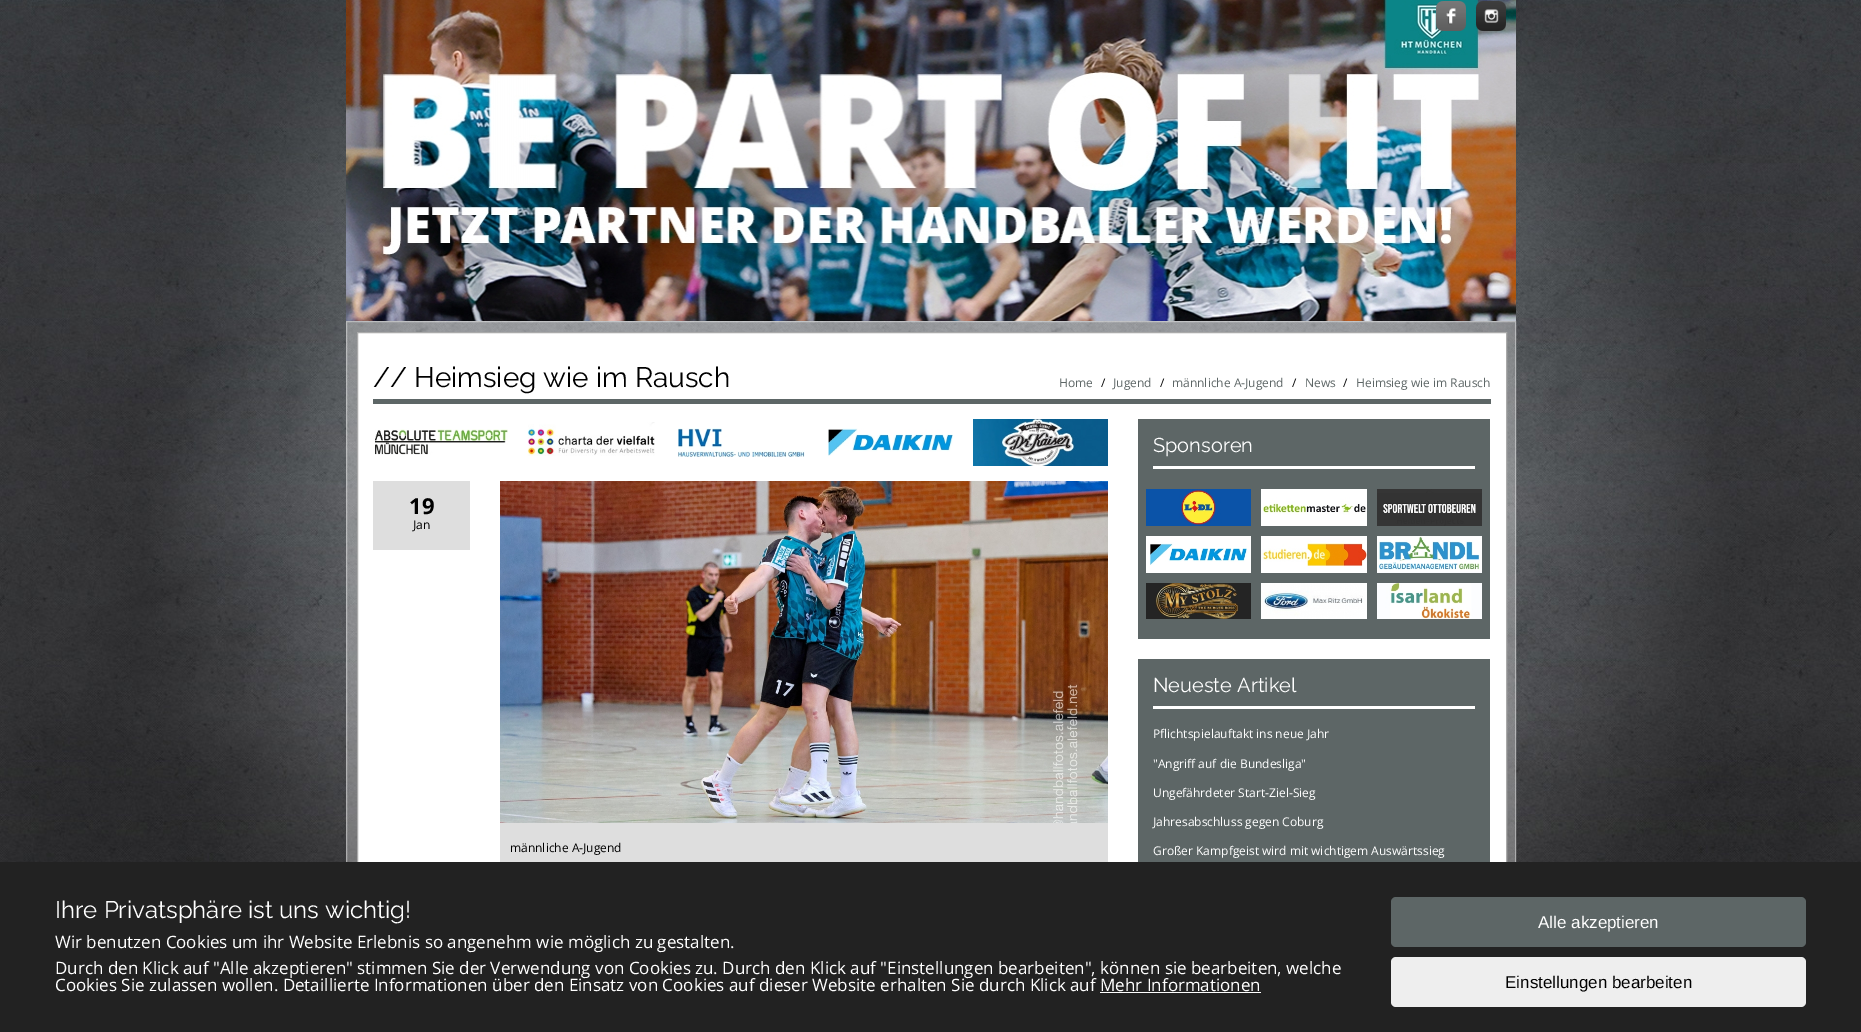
%!PS
<< /PageSize [1861 1032] /PageUsesTransparency true >> setpagedevice
/rgb { dup -16 bitshift 255 div exch dup -8 bitshift 255 and 255 div exch 255 and 255 div setrgbcolor } def
/font { [ exch dup neg 0 0 3 -1 roll 0 0 ] selectfont } def
/text { moveto show } def
/alpha { dup .setfillconstantalpha .setstrokeconstantalpha } def
/roundrect { 5 dict begin { /r /h /w /y /x } { exch def } forall
  x r add y moveto x w add y 2 copy h add r arct x w add y h add x 1 index r arct
  x y h add x y r arct x y 2 copy exch w add exch r arct closepath end } def
/picture { 5 dict begin { /h /w /y /x /name } { exch def } forall
  gsave x y translate w h scale
  w h 8 [w 0 0 h 0 0] name (r) file false 3 colorimage grestore end } def
0 .pushpdf14devicefilter
0 1032 translate 1 -1 scale
4 setmiterlimit
/s1 { /Raleway-Regular 28 font 16#000000 rgb } def
/s2 { /OpenSans-Regular 12 font 16#5D6666 rgb } def
/s3 { /OpenSans-Regular 12 font 16#000000 rgb } def
/s4 { /OpenSans-Bold 22 font 16#000000 rgb } def
/s5 { /Raleway-Regular 20 font 16#FFFFFF rgb } def
/s6 { /OpenSans-Regular 12 font 16#FFFFFF rgb } def
/s7 { /Raleway-Regular 24 font 16#FFFFFF rgb } def
/s8 { /OpenSans-Regular 17 font 16#FFFFFF rgb } def
/s9 { /LiberationSans-Regular 17 font 16#FFFFFF rgb } def
/s10 { /LiberationSans-Regular 17 font 16#000000 rgb } def
16#FFFFFF rgb
0 0 1861 1032 rectfill
(pic1.raw) 0 0 1861 862 picture
(pic2.raw) 346 0 1170 321 picture
(pic3.raw) 1436 1 30 30 picture
(pic4.raw) 1476 1 30 30 picture
0.3 alpha
346 321 1170 541 rectfill
0.4 alpha
346.5 321.5 1169 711 rectstroke
1 alpha
358 333 1148 529 rectfill
16#AAAAAA rgb
357.5 332.5 1149 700 rectstroke
16#5D6666 rgb
373 399 1118 5 rectfill
s1
(// Heimsieg wie im Rausch) 373 387 text
s2
(Home) 1059 387 text
s3
(/) 1101 387 text
s2
(Jugend) 1113 387 text
s3
(/) 1160 387 text
s2
(männliche A-Jugend) 1172 387 text
s3
(/) 1292 387 text
s2
(News) 1305 387 text
s3
(/) 1343 387 text
s2
(Heimsieg wie im Rausch) 1356 387 text
(pic5.raw) 375 429 133 26 picture
(pic6.raw) 527 422 128 34 picture
(pic7.raw) 678 428 127 29 picture
(pic8.raw) 828 428 125 28 picture
(pic9.raw) 973 419 135 47 picture
16#DEDEDE rgb
373 481 97 69 rectfill
s4
(19) 409 514 text
s3
(Jan) 413 529 text
16#DEDEDE rgb
500 823 608 39 rectfill
(pic10.raw) 500 481 608 342 picture
s3
(männliche A-Jugend) 510 852 text
16#5D6666 rgb
1138 419 352 220 rectfill
16#FFFFFF rgb
1153 466 322 3 rectfill
s5
(Sponsoren) 1153 452 text
(pic11.raw) 1146 489 105 37 picture
(pic12.raw) 1261 489 106 37 picture
(pic13.raw) 1377 489 105 37 picture
(pic14.raw) 1146 536 105 37 picture
(pic15.raw) 1261 536 106 37 picture
(pic16.raw) 1377 536 105 37 picture
(pic17.raw) 1146 583 105 36 picture
(pic18.raw) 1261 583 106 36 picture
(pic19.raw) 1377 583 105 36 picture
16#5D6666 rgb
1138 659 352 203 rectfill
16#FFFFFF rgb
1153 706 322 3 rectfill
(Neueste Artikel) 1153 692 text
s6
(Pflichtspielauftakt ins neue Jahr) 1153 738 text
("Angriff auf die Bundesliga") 1153 768 text
(Ungefährdeter Start-Ziel-Sieg) 1153 797 text
(Jahresabschluss gegen Coburg) 1153 826 text
(Großer Kampfgeist wird mit wichtigem Auswärtssieg) 1153 855 text
16#222222 rgb
0 862 1861 170 rectfill
s7
(Ihre Privatsphäre ist uns wichtig!) 55 918 text
s8
(Wir benutzen Cookies um ihr Website Erlebnis so angenehm wie möglich zu gestalten.) 55 948 text
(Durch den Klick auf "Alle akzeptieren" stimmen Sie der Verwendung von Cookies zu. Durch den Klick auf "Einstellungen bearbeiten", können sie bearbeiten, welche) 55 974 text
(Cookies Sie zulassen wollen. Detaillierte Informationen über den Einsatz von Cookies auf dieser Website erhalten Sie durch Klick auf Mehr Informationen) 55 991 text
1100 992 161 1 rectfill
16#5D6666 rgb
1391 897 415 50 5 roundrect fill
s9
(Alle akzeptieren) 1538 928 text
16#EEEEEE rgb
1391 957 415 50 5 roundrect fill
s10
(Einstellungen bearbeiten) 1505 988 text
.poppdf14devicefilter showpage
